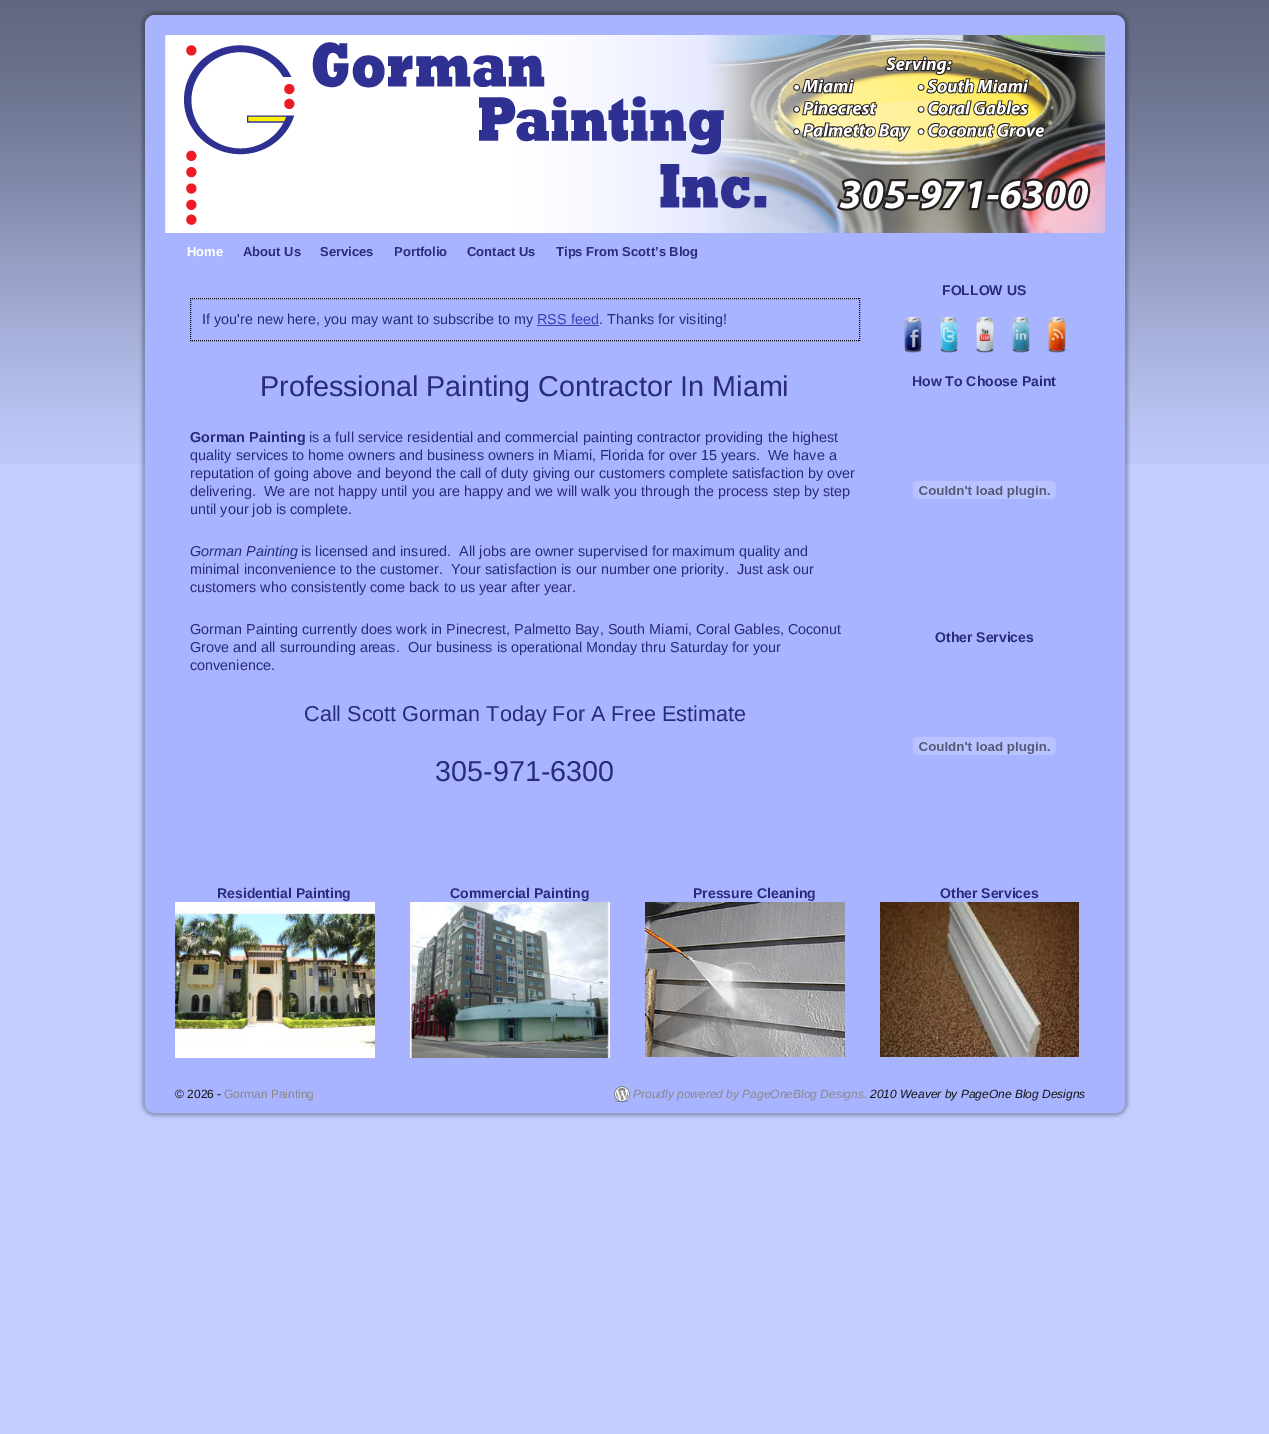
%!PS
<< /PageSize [1269 1434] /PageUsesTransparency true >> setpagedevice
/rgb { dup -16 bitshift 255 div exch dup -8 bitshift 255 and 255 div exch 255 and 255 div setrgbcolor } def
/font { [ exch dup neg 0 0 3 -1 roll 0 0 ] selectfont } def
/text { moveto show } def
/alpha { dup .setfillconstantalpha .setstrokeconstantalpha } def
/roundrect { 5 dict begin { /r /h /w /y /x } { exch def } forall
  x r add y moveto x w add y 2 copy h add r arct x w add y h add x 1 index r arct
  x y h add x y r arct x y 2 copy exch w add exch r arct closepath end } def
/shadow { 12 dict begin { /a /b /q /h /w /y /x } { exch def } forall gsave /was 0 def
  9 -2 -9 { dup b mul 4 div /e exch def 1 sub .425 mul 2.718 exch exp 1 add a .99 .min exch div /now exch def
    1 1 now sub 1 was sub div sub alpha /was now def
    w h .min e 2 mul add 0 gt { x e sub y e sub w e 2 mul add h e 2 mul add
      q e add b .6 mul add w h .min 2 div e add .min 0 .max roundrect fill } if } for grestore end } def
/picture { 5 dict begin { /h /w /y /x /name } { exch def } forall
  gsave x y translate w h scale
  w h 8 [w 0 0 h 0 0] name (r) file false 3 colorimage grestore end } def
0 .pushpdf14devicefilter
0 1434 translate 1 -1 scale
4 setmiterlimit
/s1 { /LiberationSans-Bold 13 font 16#FFFFFF rgb } def
/s2 { /LiberationSans-Bold 13 font 16#2A2A7D rgb } def
/s3 { /LiberationSans-Regular 14.4 font 16#2A2A7D rgb } def
/s4 { /LiberationSans-Regular 14.4 font 16#3C3CB3 rgb } def
/s5 { /LiberationSans-Regular 28.75 font 16#2A2A7D rgb } def
/s6 { /LiberationSans-Bold 14.4 font 16#2A2A7D rgb } def
/s7 { /LiberationSans-Italic 14.4 font 16#2A2A7D rgb } def
/s8 { /LiberationSans-Regular 21.6 font 16#2A2A7D rgb } def
/s9 { /LiberationSans-Bold 14 font 16#2A2A7D rgb } def
/s10 { /LiberationSans-Regular 12 font 16#141414 rgb } def
/s11 { /LiberationSans-Regular 12 font 16#888888 rgb } def
/s12 { /LiberationSans-Italic 12 font 16#888888 rgb } def
/s13 { /LiberationSans-Italic 12 font 16#141414 rgb } def
16#C2CEFF rgb
0 0 1269 1434 rectfill
(pic1.raw) 0 0 1269 464 picture
16#000000 rgb
142 12 986 1104 13 1.5 0.25 shadow
16#A8B4FF rgb
145 15 980 1098 10 roundrect fill
(pic2.raw) 165 35 940 198 picture
s1
(Home) 187 256 text
s2
(About Us) 243 256 text
(Services) 320 256 text
(Portfolio) 394 256 text
(Contact Us) 467 256 text
(Tips From Scott’s Blog) 556 256 text
16#000000 rgb
[1 1] 0 setdash
190 298.5 moveto 860 298.5 lineto stroke
859.5 298 moveto 859.5 341 lineto stroke
190 340.5 moveto 860 340.5 lineto stroke
190.5 298 moveto 190.5 341 lineto stroke
s3
(If you're new here, you may want to subscribe to my) 202 324 text
s4
(RSS feed) 537 324 text
537 325 62 1 rectfill
s3
(. Thanks for visiting!) 599 324 text
s5
(Professional Painting Contractor In Miami) 260 396 text
s6
(Gorman Painting) 190 442 text
s3
(is a full service residential and commercial painting contractor providing the highest) 309 442 text
(quality services to home owners and business owners in Miami, Florida for over 15 years.  We have a) 190 460 text
(reputation of going above and beyond the call of duty giving our customers complete satisfaction by over) 190 478 text
(delivering.  We are not happy until you are happy and we will walk you through the process step by step) 190 496 text
(until your job is complete.) 190 514 text
s7
(Gorman Painting) 190 556 text
s3
(is licensed and insured.  All jobs are owner supervised for maximum quality and) 301 556 text
(minimal inconvenience to the customer.  Your satisfaction is our number one priority.  Just ask our) 190 574 text
(customers who consistently come back to us year after year.) 190 592 text
(Gorman Painting currently does work in Pinecrest, Palmetto Bay, South Miami, Coral Gables, Coconut) 190 634 text
(Grove and all surrounding areas.  Our business is operational Monday thru Saturday for your) 190 652 text
(convenience.) 190 670 text
s8
(Call Scott Gorman Today For A Free Estimate) 304 721 text
s5
(305-971-6300) 435 781 text
s9
(FOLLOW US) 942 295 text
(pic3.raw) 904 317 18 36 picture
(pic4.raw) 940 317 18 36 picture
(pic5.raw) 976 317 18 36 picture
(pic6.raw) 1012 317 18 36 picture
(pic7.raw) 1048 317 18 36 picture
(How To Choose Paint) 912 386 text
(pic8.raw) 913 481 143 18 picture
(Other Services) 935 642 text
(pic8.raw) 913 737 143 18 picture
(Residential Painting) 217 898 text
(pic9.raw) 175 902 200 156 picture
(Commercial Painting) 450 898 text
(pic10.raw) 410 902 200 156 picture
(Pressure Cleaning) 693 898 text
(pic11.raw) 645 902 200 155 picture
(Other Services) 940 898 text
(pic12.raw) 880 902 199 155 picture
s10
(© 2026 -) 175 1098 text
s11
(Gorman Painting) 224 1098 text
(pic13.raw) 614 1086 16 16 picture
s12
(Proudly powered by PageOneBlog Designs.) 633 1098 text
s13
(2010 Weaver by PageOne Blog Designs) 870 1098 text
.poppdf14devicefilter showpage
